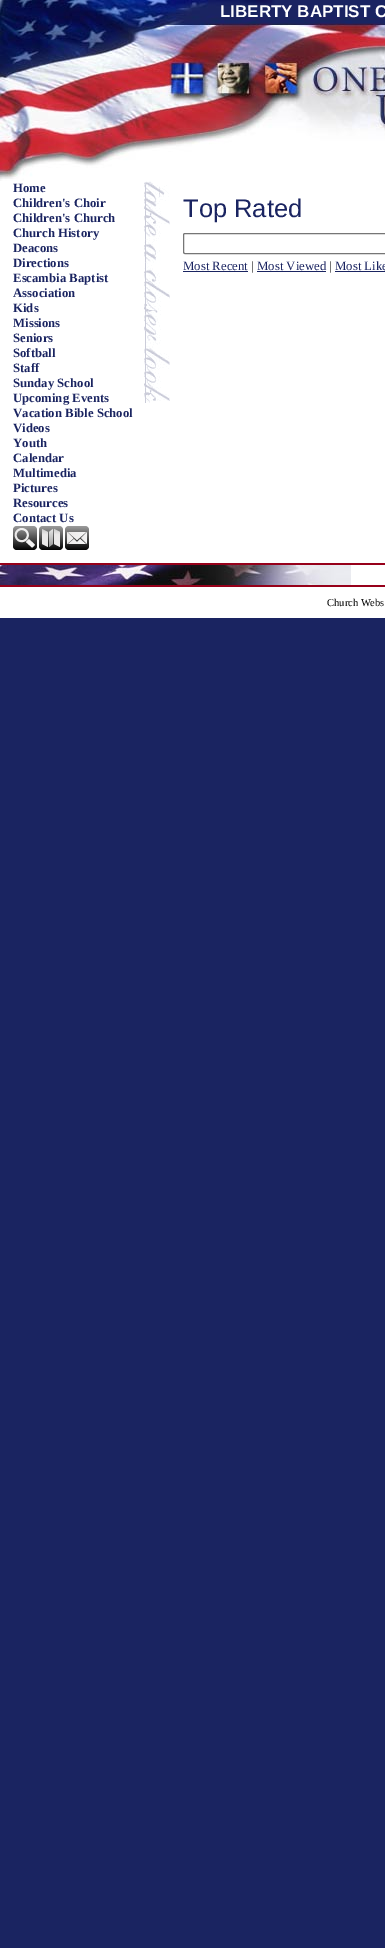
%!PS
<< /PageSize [385 1948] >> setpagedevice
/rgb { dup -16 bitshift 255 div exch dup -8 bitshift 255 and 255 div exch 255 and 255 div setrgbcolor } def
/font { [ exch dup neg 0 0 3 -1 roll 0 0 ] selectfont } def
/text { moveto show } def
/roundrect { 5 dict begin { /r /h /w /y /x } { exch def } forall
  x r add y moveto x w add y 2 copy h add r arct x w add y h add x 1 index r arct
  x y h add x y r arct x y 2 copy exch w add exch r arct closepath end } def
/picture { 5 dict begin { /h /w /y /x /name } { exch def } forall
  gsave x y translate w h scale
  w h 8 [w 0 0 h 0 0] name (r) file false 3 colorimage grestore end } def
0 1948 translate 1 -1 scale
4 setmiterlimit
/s1 { /LiberationSans-Bold 17 font 16#FFFFFF rgb } def
/s2 { /LiberationSerif-Bold 12.75 font 16#1A2461 rgb } def
/s3 { /LiberationSans-Regular 25.5 font 16#1A2461 rgb } def
/s4 { /LiberationSerif-Regular 12.75 font 16#1A2461 rgb } def
/s5 { /LiberationSerif-Regular 12.75 font 16#000000 rgb } def
/s6 { /LiberationSerif-Regular 10.5 font 16#000000 rgb } def
16#1A2461 rgb
0 0 385 1948 rectfill
16#FFFFFF rgb
0 181 385 437 rectfill
(pic1.raw) 0 0 385 181 picture
s1
(LIBERTY BAPTIST C) 220 17 text
(pic2.raw) 144 181 26 222 picture
s2
(Home) 13 192 text
(Children's Choir) 13 207 text
(Children's Church) 13 222 text
(Church History) 13 237 text
(Deacons) 13 252 text
(Directions) 13 267 text
(Escambia Baptist) 13 282 text
(Association) 13 297 text
(Kids) 13 312 text
(Missions) 13 327 text
(Seniors) 13 342 text
(Softball) 13 357 text
(Staff) 13 372 text
(Sunday School) 13 387 text
(Upcoming Events) 13 402 text
(Vacation Bible School) 13 417 text
(Videos) 13 432 text
(Youth) 13 447 text
(Calendar) 13 462 text
(Multimedia) 13 477 text
(Pictures) 13 492 text
(Resources) 13 507 text
(Contact Us) 13 522 text
(pic3.raw) 13 526 24 24 picture
(pic4.raw) 39 526 24 24 picture
(pic5.raw) 65 526 24 24 picture
s3
(Top Rated) 183 217 text
16#767676 rgb
183.5 233.5 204 20 1.5 roundrect stroke
s4
(Most Recent) 183 270 text
183 271 65 1 rectfill
s5
(|) 251 270 text
s4
(Most Viewed) 257 270 text
257 271 69 1 rectfill
s5
(|) 329 270 text
s4
(Most Like) 335 270 text
335 271 50 1 rectfill
(pic6.raw) 0 565 351 20 picture
16#97001A rgb
0 563 385 2 rectfill
0 585 385 2 rectfill
s6
(Church Webs) 327 606 text
showpage
